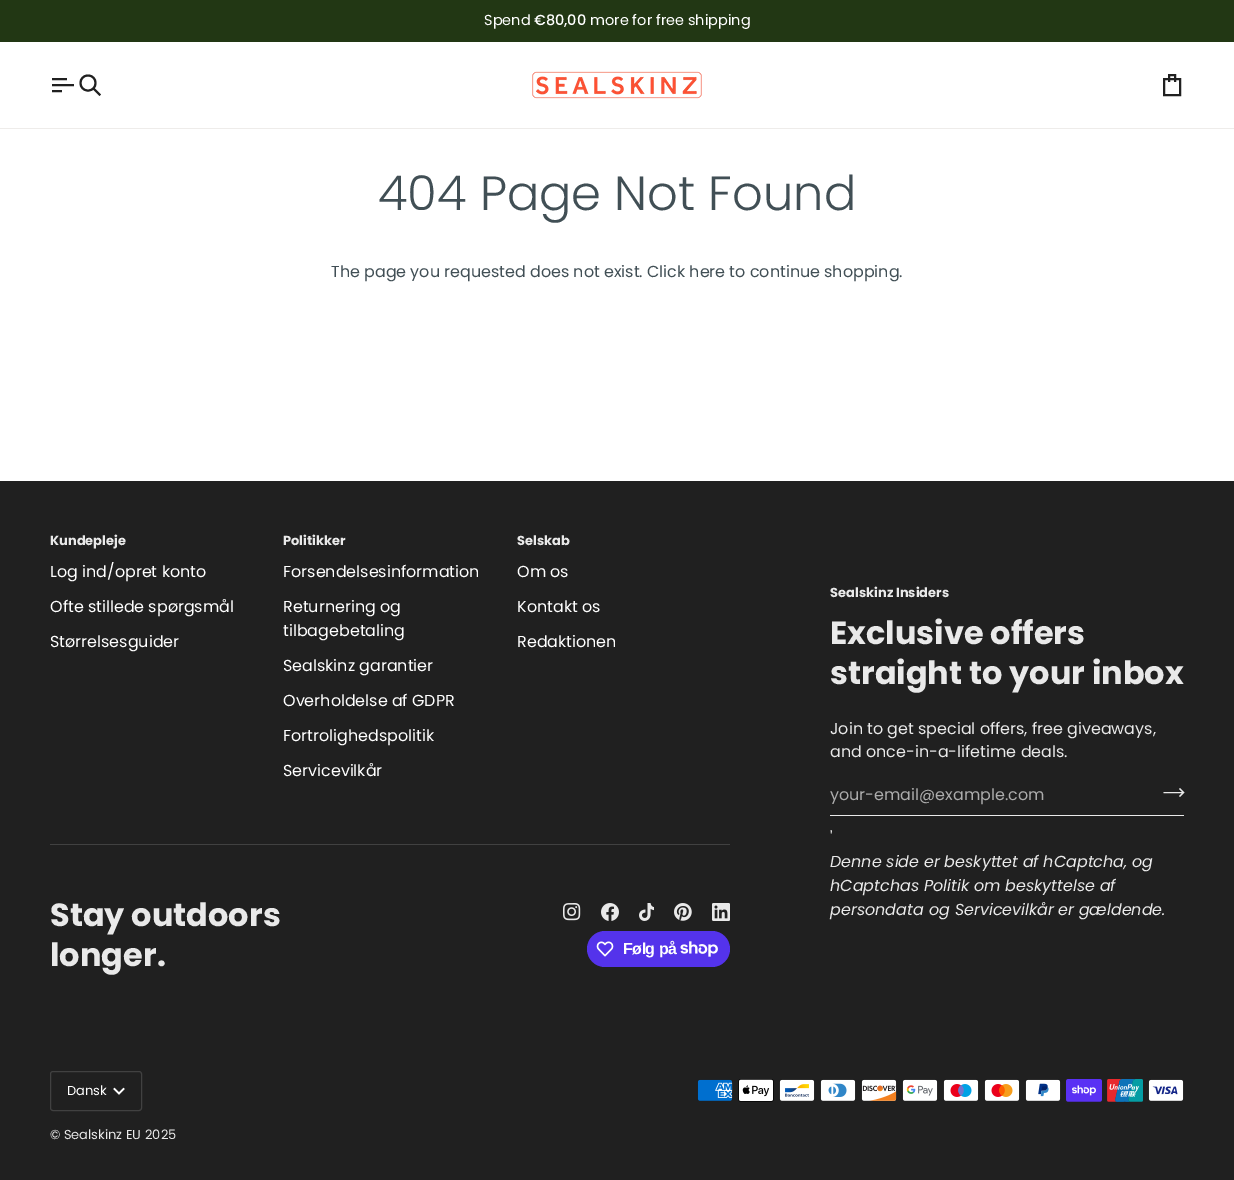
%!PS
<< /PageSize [1234 1180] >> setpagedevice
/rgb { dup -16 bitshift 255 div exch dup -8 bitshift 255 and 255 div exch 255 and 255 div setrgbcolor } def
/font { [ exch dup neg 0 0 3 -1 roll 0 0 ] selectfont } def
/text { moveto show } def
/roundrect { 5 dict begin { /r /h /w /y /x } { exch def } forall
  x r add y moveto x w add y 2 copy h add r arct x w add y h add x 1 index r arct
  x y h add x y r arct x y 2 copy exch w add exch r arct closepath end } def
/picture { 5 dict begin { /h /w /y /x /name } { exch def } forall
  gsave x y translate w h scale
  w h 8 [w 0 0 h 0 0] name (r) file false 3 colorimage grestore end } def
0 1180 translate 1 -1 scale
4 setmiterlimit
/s1 { /Poppins-Regular 14.5 font 16#FFFFFF rgb } def
/s2 { /Poppins-Medium 14.5 font 16#FFFFFF rgb } def
/s3 { /Poppins-Light 48 font 16#414F55 rgb } def
/s4 { /Poppins-Regular 15.95 font 16#414F55 rgb } def
/s5 { /Poppins-Bold 13 font 16#E9E9E9 rgb } def
/s6 { /Poppins-Regular 15.95 font 16#FFFFFF rgb } def
/s7 { /Poppins-Bold 32 font 16#E9E9E9 rgb } def
/s8 { /Poppins-Regular 15.95 font 16#E9E9E9 rgb } def
/s9 { /Poppins-Regular 15.95 font 16#ACACAC rgb } def
/s10 { /Poppins-Italic 15.95 font 16#E9E9E9 rgb } def
/s11 { /Poppins-Regular 13 font 16#FFFFFF rgb } def
/s12 { /Poppins-Regular 13 font 16#E9E9E9 rgb } def
16#FFFFFF rgb
0 0 1234 1180 rectfill
16#223714 rgb
0 0 1234 42 rectfill
s1
(Spend) 484 25 text
s2
(€80,00) 534 25 text
s1
(more for free shipping) 590 25 text
16#EEECEA rgb
0 128 1234 1 rectfill
16#202020 rgb
2 setlinewidth
2 setlinecap
66 79 moveto 53 79 lineto 73 85 moveto 53 85 lineto 61 91 moveto 53 91 lineto 88 90.5 moveto 98 90.5 98 75.5 88 75.5 curveto 78 75.5 78 90.5 88 90.5 curveto closepath 99.5 94.5 moveto 94 89 lineto stroke
(pic1.raw) 532 71 170 28 picture
0 setlinecap
1164 79 moveto 1180 79 lineto 1180 95 lineto 1164 95 lineto closepath 1169 82 moveto 1169 75 lineto 1175 75 lineto 1175 82 lineto stroke
s3
(404 Page Not Found) 378 210 text
s4
(The page you requested does not exist. Click here to continue shopping.) 331 277 text
16#202020 rgb
0 481 1234 699 rectfill
s5
(Kundepleje) 50 545 text
s6
(Log ind/opret konto) 50 577 text
(Ofte stillede spørgsmål) 50 612 text
(Størrelsesguider) 50 647 text
s5
(Politikker) 283 545 text
s6
(Forsendelsesinformation) 283 577 text
(Returnering og) 283 612 text
(tilbagebetaling) 283 636 text
(Sealskinz garantier) 283 671 text
(Overholdelse af GDPR) 283 706 text
(Fortrolighedspolitik) 283 741 text
(Servicevilkår) 283 776 text
s5
(Selskab) 517 545 text
s6
(Om os) 517 577 text
(Kontakt os) 517 612 text
(Redaktionen) 517 647 text
16#414141 rgb
50 844 680 1 rectfill
s7
(Stay outdoors) 50 926 text
(longer.) 50 966 text
(pic2.raw) 563 903 18 18 picture
(pic3.raw) 601 903 18 18 picture
(pic4.raw) 639 903 15 18 picture
(pic5.raw) 674 903 18 18 picture
(pic6.raw) 712 903 18 18 picture
16#5433EB rgb
587 931 143 36 18 roundrect fill
(pic7.raw) 596 941 18 16 picture
/LiberationSans-Bold 16 font
16#FFFFFF rgb
623 954 moveto -0.5 0 (Følg på) ashow
(pic8.raw) 680 941 38 16 picture
s5
(Sealskinz Insiders) 830 597 text
s7
(Exclusive offers) 830 644 text
(straight to your inbox) 830 684 text
s8
(Join to get special offers, free giveaways,) 830 734 text
(and once-in-a-lifetime deals.) 830 757 text
830 815 354 1 rectfill
s9
(your-email@example.com) 830 800 text
16#E9E9E9 rgb
1.1 setlinewidth
1179.5 788.5 moveto 1183.5 792.5 lineto 1179.5 796.5 lineto 1163.5 792.5 moveto 1183.5 792.5 lineto stroke
(') 830 843 text
s10
(Denne side er beskyttet af hCaptcha, og) 830 867 text
(hCaptchas Politik om beskyttelse af) 830 891 text
(persondata) 830 915 text
(og Servicevilkår) 929 915 text
(er gældende.) 1058 915 text
16#414141 rgb
1 setlinewidth
50.5 1071.5 91 39 2.5 roundrect stroke
s11
(Dansk) 67 1095 text
1.5 setlinewidth
2 setlinecap
114.5 1089 moveto 119 1093.5 lineto 123.5 1089 lineto stroke
(pic9.raw) 697 1079 36 22 picture
(pic10.raw) 738 1079 36 23 picture
(pic11.raw) 779 1079 36 22 picture
(pic12.raw) 820 1079 36 22 picture
(pic13.raw) 861 1079 36 22 picture
(pic14.raw) 902 1079 36 22 picture
(pic15.raw) 943 1079 36 22 picture
(pic16.raw) 984 1079 36 22 picture
(pic17.raw) 1025 1079 36 22 picture
(pic18.raw) 1066 1079 36 23 picture
(pic19.raw) 1107 1079 36 23 picture
(pic20.raw) 1148 1079 36 22 picture
s12
(© Sealskinz EU) 50 1139 text
(2025) 145 1139 text
showpage
